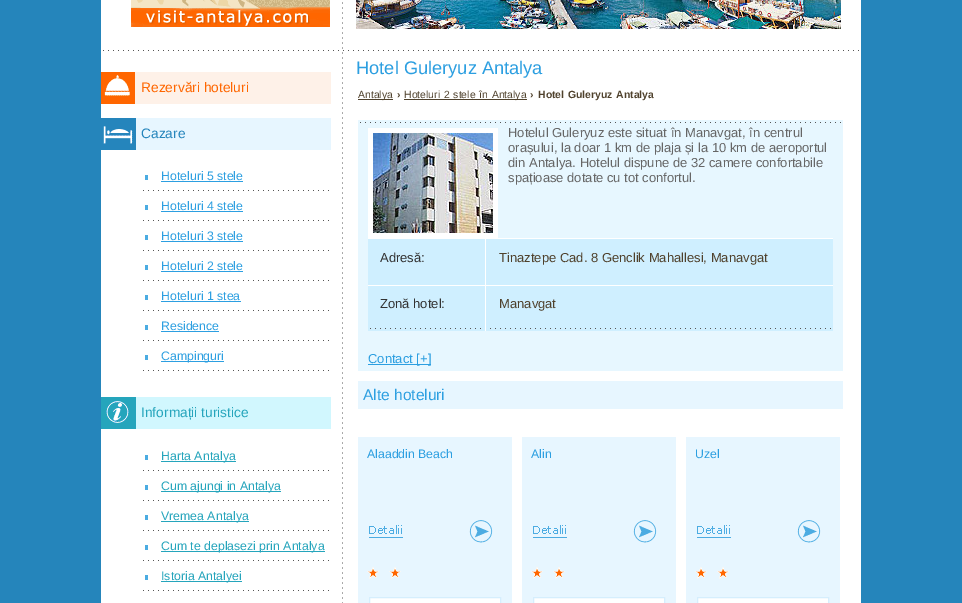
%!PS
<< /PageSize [962 603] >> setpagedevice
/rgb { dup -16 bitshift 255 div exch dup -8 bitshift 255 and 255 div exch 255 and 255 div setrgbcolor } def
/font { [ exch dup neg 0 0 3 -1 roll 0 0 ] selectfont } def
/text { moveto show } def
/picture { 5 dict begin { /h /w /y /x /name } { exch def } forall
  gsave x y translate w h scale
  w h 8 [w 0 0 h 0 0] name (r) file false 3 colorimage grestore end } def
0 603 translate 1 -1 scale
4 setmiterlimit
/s1 { /LiberationSans-Regular 18.25 font 16#2C9FE1 rgb } def
/s2 { /LiberationSans-Regular 13.75 font 16#FF6600 rgb } def
/s3 { /LiberationSans-Regular 13.75 font 16#2585BC rgb } def
/s4 { /LiberationSans-Regular 12.3 font 16#2C9FE1 rgb } def
/s5 { /LiberationSans-Regular 13.75 font 16#25A5BC rgb } def
/s6 { /LiberationSans-Regular 12.3 font 16#25A5BC rgb } def
/s7 { /LiberationSans-Regular 10.4 font 16#4F412C rgb } def
/s8 { /LiberationSans-Bold 10.4 font 16#4F412C rgb } def
/s9 { /LiberationSans-Regular 13 font 16#666666 rgb } def
/s10 { /LiberationSans-Regular 13 font 16#333333 rgb } def
/s11 { /LiberationSans-Regular 13 font 16#4F412C rgb } def
/s12 { /LiberationSans-Regular 13 font 16#2C9FE1 rgb } def
/s13 { /LiberationSans-Regular 15.5 font 16#2C9FE1 rgb } def
16#2585BB rgb
0 0 962 603 rectfill
16#FFFFFF rgb
101 0 760 603 rectfill
(pic1.raw) 342 2 1 601 picture
(pic2.raw) 103 50 756 1 picture
(pic3.raw) 131 0 199 27 picture
(pic4.raw) 356 0 485 29 picture
s1
(Hotel Guleryuz Antalya) 356 74 text
16#FEF1E8 rgb
135 72 196 32 rectfill
(pic5.raw) 101 72 34 32 picture
s2
(Rezervări hoteluri) 141 92 text
16#E7F6FF rgb
136 118 195 32 rectfill
(pic6.raw) 101 118 35 32 picture
s3
(Cazare) 141 138 text
(pic7.raw) 143 190 186 1 picture
16#4CACE2 rgb
145 175 3 5 rectfill
s4
(Hoteluri 5 stele) 161 180 text
161 181 82 1 rectfill
(pic7.raw) 143 220 186 1 picture
16#4CACE2 rgb
145 205 3 5 rectfill
s4
(Hoteluri 4 stele) 161 210 text
161 211 82 1 rectfill
(pic7.raw) 143 250 186 1 picture
16#4CACE2 rgb
145 235 3 5 rectfill
s4
(Hoteluri 3 stele) 161 240 text
161 241 82 1 rectfill
(pic7.raw) 143 280 186 1 picture
16#4CACE2 rgb
145 265 3 5 rectfill
s4
(Hoteluri 2 stele) 161 270 text
161 271 82 1 rectfill
(pic7.raw) 143 310 186 1 picture
16#4CACE2 rgb
145 295 3 5 rectfill
s4
(Hoteluri 1 stea) 161 300 text
161 301 80 1 rectfill
(pic7.raw) 143 340 186 1 picture
16#4CACE2 rgb
145 325 3 5 rectfill
s4
(Residence) 161 330 text
161 331 58 1 rectfill
(pic7.raw) 143 370 186 1 picture
16#4CACE2 rgb
145 355 3 5 rectfill
16#2C9FE1 rgb
161 361 63 1 rectfill
(Campinguri) 161 360 text
16#D1F7FE rgb
136 397 195 32 rectfill
(pic8.raw) 101 397 35 32 picture
s5
(Informații turistice) 141 417 text
(pic7.raw) 143 470 186 1 picture
16#4CACE2 rgb
145 455 3 5 rectfill
16#25A5BC rgb
161 461 75 1 rectfill
s6
(Harta Antalya) 161 460 text
(pic7.raw) 143 500 186 1 picture
16#4CACE2 rgb
145 485 3 5 rectfill
16#25A5BC rgb
161 491 120 1 rectfill
(Cum ajungi in Antalya) 161 490 text
(pic7.raw) 143 530 186 1 picture
16#4CACE2 rgb
145 515 3 5 rectfill
16#25A5BC rgb
161 521 88 1 rectfill
(Vremea Antalya) 161 520 text
(pic7.raw) 143 560 186 1 picture
16#4CACE2 rgb
145 545 3 5 rectfill
16#25A5BC rgb
161 551 164 1 rectfill
(Cum te deplasezi prin Antalya) 161 550 text
(pic7.raw) 143 590 186 1 picture
16#4CACE2 rgb
145 575 3 5 rectfill
16#25A5BC rgb
161 581 81 1 rectfill
(Istoria Antalyei) 161 580 text
16#4F412C rgb
358 99 35 1 rectfill
s7
(Antalya) 358 98 text
s8
(›) 397 98 text
404 99 123 1 rectfill
/LiberationSans-Regular 10.4 font
404 98 moveto 1 0 32 (Hoteluri 2 stele în Antalya) widthshow
s8
(›) 530 98 text
538 98 moveto 1 0 32 (Hotel Guleryuz Antalya) widthshow
16#E7F7FF rgb
358 120 485 251 rectfill
(pic9.raw) 360 122 481 1 picture
16#FFFFFF rgb
368 128 130 110 rectfill
(pic10.raw) 373 133 120 100 picture
s9
(Hotelul Guleryuz este situat în Manavgat, în centrul) 508 137 text
(orașului, la doar 1 km de plaja și la 10 km de aeroportul) 508 152 text
(din Antalya. Hotelul dispune de 32 camere confortabile) 508 167 text
(spațioase dotate cu tot confortul.) 508 182 text
16#CFEFFF rgb
368 239 465 92 rectfill
(pic11.raw) 370 328 461 1 picture
16#FFFFFF rgb
368 238 465 1 rectfill
368 285 465 1 rectfill
485 238 1 93 rectfill
s10
(Adresă:) 380 262 text
s11
(Tinaztepe Cad. 8 Genclik Mahallesi, Manavgat) 499 262 text
s10
(Zonă hotel:) 380 308 text
s11
(Manavgat) 499 308 text
16#2C9FE1 rgb
368 364 63 1 rectfill
(Contact [+]) 368 363 text
16#E7F6FF rgb
358 381 485 28 rectfill
s13
(Alte hoteluri) 363 400 text
16#E7F6FF rgb
358 437 154 166 rectfill
(pic12.raw) 367 567 34 12 picture
(pic13.raw) 369 520 124 23 picture
s4
(Alaaddin Beach) 367 458 text
16#FFFFFF rgb
369.5 597.5 moveto 500.5 597.5 lineto 500.5 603.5 lineto 369.5 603.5 lineto closepath gsave fill grestore
16#D5EEFD rgb
stroke
16#E7F6FF rgb
522 437 154 166 rectfill
(pic12.raw) 531 567 34 12 picture
(pic13.raw) 533 520 124 23 picture
s4
(Alin) 531 458 text
16#FFFFFF rgb
533.5 597.5 moveto 664.5 597.5 lineto 664.5 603.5 lineto 533.5 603.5 lineto closepath gsave fill grestore
16#D5EEFD rgb
stroke
16#E7F6FF rgb
686 437 154 166 rectfill
(pic12.raw) 695 567 34 12 picture
(pic13.raw) 697 520 124 23 picture
s4
(Uzel) 695 458 text
16#FFFFFF rgb
697.5 597.5 moveto 828.5 597.5 lineto 828.5 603.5 lineto 697.5 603.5 lineto closepath gsave fill grestore
16#D5EEFD rgb
stroke
showpage
